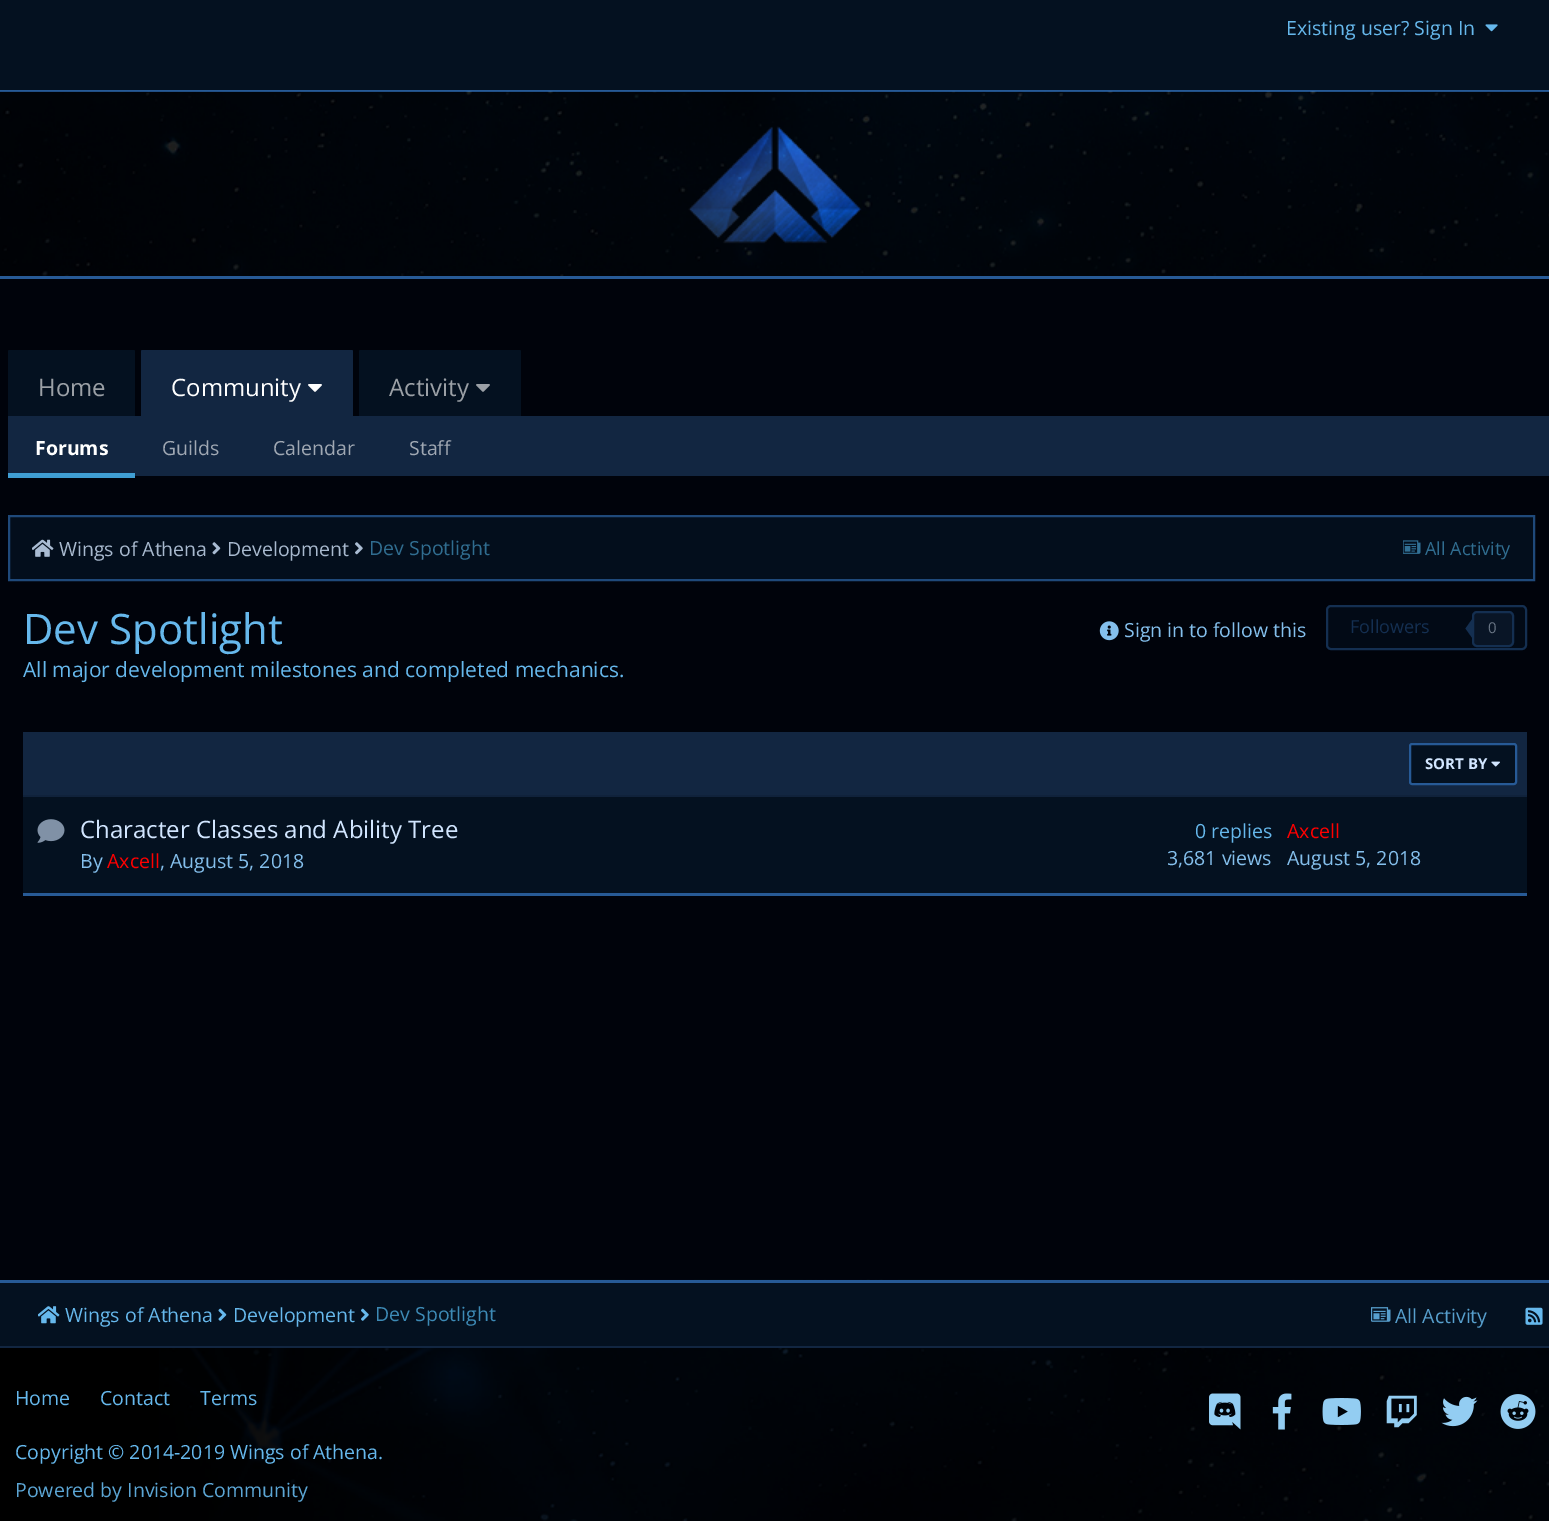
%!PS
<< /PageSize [1549 1521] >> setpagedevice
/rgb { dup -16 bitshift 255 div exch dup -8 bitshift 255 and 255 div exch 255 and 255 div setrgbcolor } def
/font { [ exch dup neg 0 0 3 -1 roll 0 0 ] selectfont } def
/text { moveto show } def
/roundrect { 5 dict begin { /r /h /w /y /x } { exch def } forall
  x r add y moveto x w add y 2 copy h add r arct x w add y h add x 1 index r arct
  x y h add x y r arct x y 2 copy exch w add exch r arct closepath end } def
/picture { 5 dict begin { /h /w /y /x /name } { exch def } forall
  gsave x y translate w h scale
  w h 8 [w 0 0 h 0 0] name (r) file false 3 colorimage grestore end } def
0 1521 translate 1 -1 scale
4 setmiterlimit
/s1 { /OpenSans-Regular 19.5 font 16#66B8EC rgb } def
/s2 { /OpenSans-Regular 24 font 16#FFFFFF rgb } def
/s3 { /OpenSans-Bold 19.5 font 16#FFFFFF rgb } def
/s4 { /OpenSans-Regular 19.5 font 16#A0A8B3 rgb } def
/s5 { /OpenSans-Regular 24 font 16#9BA0A6 rgb } def
/s6 { /OpenSans-Regular 19.5 font 16#A8B9CE rgb } def
/s7 { /OpenSans-Regular 19.5 font 16#306D90 rgb } def
/s8 { /OpenSans-Regular 18 font 16#306D90 rgb } def
/s9 { /OpenSans-Regular 42 font 16#66B8EC rgb } def
/s10 { /OpenSans-Regular 19.5 font 16#84BFEC rgb } def
/s11 { /OpenSans-Regular 18 font 16#142F51 rgb } def
/s12 { /OpenSans-Regular 15 font 16#697585 rgb } def
/s13 { /OpenSans-Regular 21 font 16#66B8EC rgb } def
/s14 { /OpenSans-Bold 15 font 16#D2E6FF rgb } def
/s15 { /OpenSans-Regular 24 font 16#D2E6FF rgb } def
/s16 { /OpenSans-Regular 19.5 font 16#FF0000 rgb } def
/s17 { /OpenSans-Regular 19.5 font 16#3D8AB5 rgb } def
/s18 { /OpenSans-Regular 19.5 font 16#579FCD rgb } def
/s19 { /OpenSans-Regular 19.5 font 16#5CA6D5 rgb } def
16#00030B rgb
0 0 1549 1521 rectfill
16#3F9DD2 rgb
8 476 127 2 rectfill
16#041120 rgb
0 0 1549 90 rectfill
16#275A96 rgb
0 90 1549 2 rectfill
s1
(Existing user? Sign In) 1286 35 text
(pic1.raw) 1485 24 13 8 picture
16#000000 rgb
0 92 1549 184 rectfill
(pic2.raw) 0 91 1549 185 picture
16#275A96 rgb
0 276 1549 3 rectfill
(pic3.raw) 688 126 174 118 picture
16#122641 rgb
142.5 350 moveto 351.5 350 lineto 352.5 350 353 350.5 353 351.5 curveto 353 423 lineto 141 423 lineto 141 351.5 lineto 141 350.5 141.5 350 142.5 350 curveto closepath fill
s2
(Community) 171 396 text
(pic4.raw) 308 384 14 8 picture
16#041120 rgb
9.5 350 moveto 133.5 350 lineto 134.5 350 135 350.5 135 351.5 curveto 135 423 lineto 8 423 lineto 8 351.5 lineto 8 350.5 8.5 350 9.5 350 curveto closepath fill
360.5 350 moveto 519.5 350 lineto 520.5 350 521 350.5 521 351.5 curveto 521 423 lineto 359 423 lineto 359 351.5 lineto 359 350.5 359.5 350 360.5 350 curveto closepath fill
16#122641 rgb
8 416 1541 60 rectfill
16#409FD4 rgb
8 473 127 3 rectfill
s3
(Forums) 35 455 text
s4
(Guilds) 162 455 text
(Calendar) 273 455 text
(Staff) 409 455 text
s5
(Home) 38 396 text
(Activity) 389 396 text
(pic5.raw) 476 384 14 8 picture
16#030E1C rgb
9 516 moveto 1534 516 lineto 1534 580 lineto 9 580 lineto closepath gsave fill grestore
16#1F497A rgb
2 setlinewidth
stroke
(pic6.raw) 32 539 22 18 picture
s6
(Wings of Athena) 59 556 text
(pic7.raw) 212 542 9 13 picture
(Development) 227 556 text
(pic8.raw) 355 542 8 13 picture
s7
(Dev Spotlight) 369 555 text
(pic9.raw) 1403 540 18 14 picture
s8
(All Activity) 1425 555 text
s9
(Dev Spotlight) 23 644 text
(pic10.raw) 1099 621 20 20 picture
s10
(Sign in to follow this) 1124 637 text
16#020A16 rgb
1327 606 199 43 4 roundrect gsave fill grestore
16#142F51 rgb
stroke
s11
(Followers) 1350 633 text
16#091526 rgb
1473 612 40 34 4 roundrect gsave fill grestore
16#142F51 rgb
stroke
1473 618 moveto 1473 639 lineto 1465.5 628.5 lineto closepath fill
s12
(0) 1488 633 text
s13
(All major development milestones and completed mechanics.) 23 677 text
16#041120 rgb
23 797 1504 96 rectfill
16#275A96 rgb
23 893 1504 3 rectfill
16#122641 rgb
23 732 1504 63 rectfill
16#10223B rgb
23 795 1504 2 rectfill
16#041120 rgb
1410 744 106 40 2 roundrect gsave fill grestore
16#275A96 rgb
stroke
s14
(SORT BY) 1425 769 text
(pic11.raw) 1491 761 9 6 picture
(pic12.raw) 37 819 28 24 picture
s15
(Character Classes and Ability Tree) 80 838 text
s10
(By) 80 868 text
s16
(Axcell) 107 868 text
s10
(, August 5, 2018) 160 868 text
s1
(0 replies) 1195 838 text
s10
(3,681 views) 1167 865 text
s16
(Axcell) 1287 838 text
s10
(August 5, 2018) 1287 865 text
16#000000 rgb
0 1348 1549 173 rectfill
(pic13.raw) 159 1279 1390 242 picture
16#041120 rgb
0 1283 1549 63 rectfill
16#275A96 rgb
0 1280 1549 3 rectfill
16#122641 rgb
0 1346 1549 2 rectfill
(pic14.raw) 38 1306 22 18 picture
s1
(Wings of Athena) 65 1322 text
(pic15.raw) 218 1308 9 13 picture
(Development) 233 1322 text
(pic16.raw) 361 1308 8 13 picture
s17
(Dev Spotlight) 375 1321 text
(pic17.raw) 1371 1307 20 15 picture
s18
(All Activity) 1395 1323 text
(pic18.raw) 1525 1307 18 18 picture
s1
(Home) 15 1405 text
(Contact) 100 1405 text
(Terms) 200 1405 text
(Copyright © 2014-2019 Wings of Athena.) 15 1459 text
(pic19.raw) 1209 1393 32 37 picture
(pic20.raw) 1272 1393 20 37 picture
(pic21.raw) 1322 1398 39 27 picture
(pic22.raw) 1386 1395 31 33 picture
(pic23.raw) 1441 1396 37 31 picture
(pic24.raw) 1500 1394 36 35 picture
s19
(Powered by Invision Community) 15 1497 text
showpage
